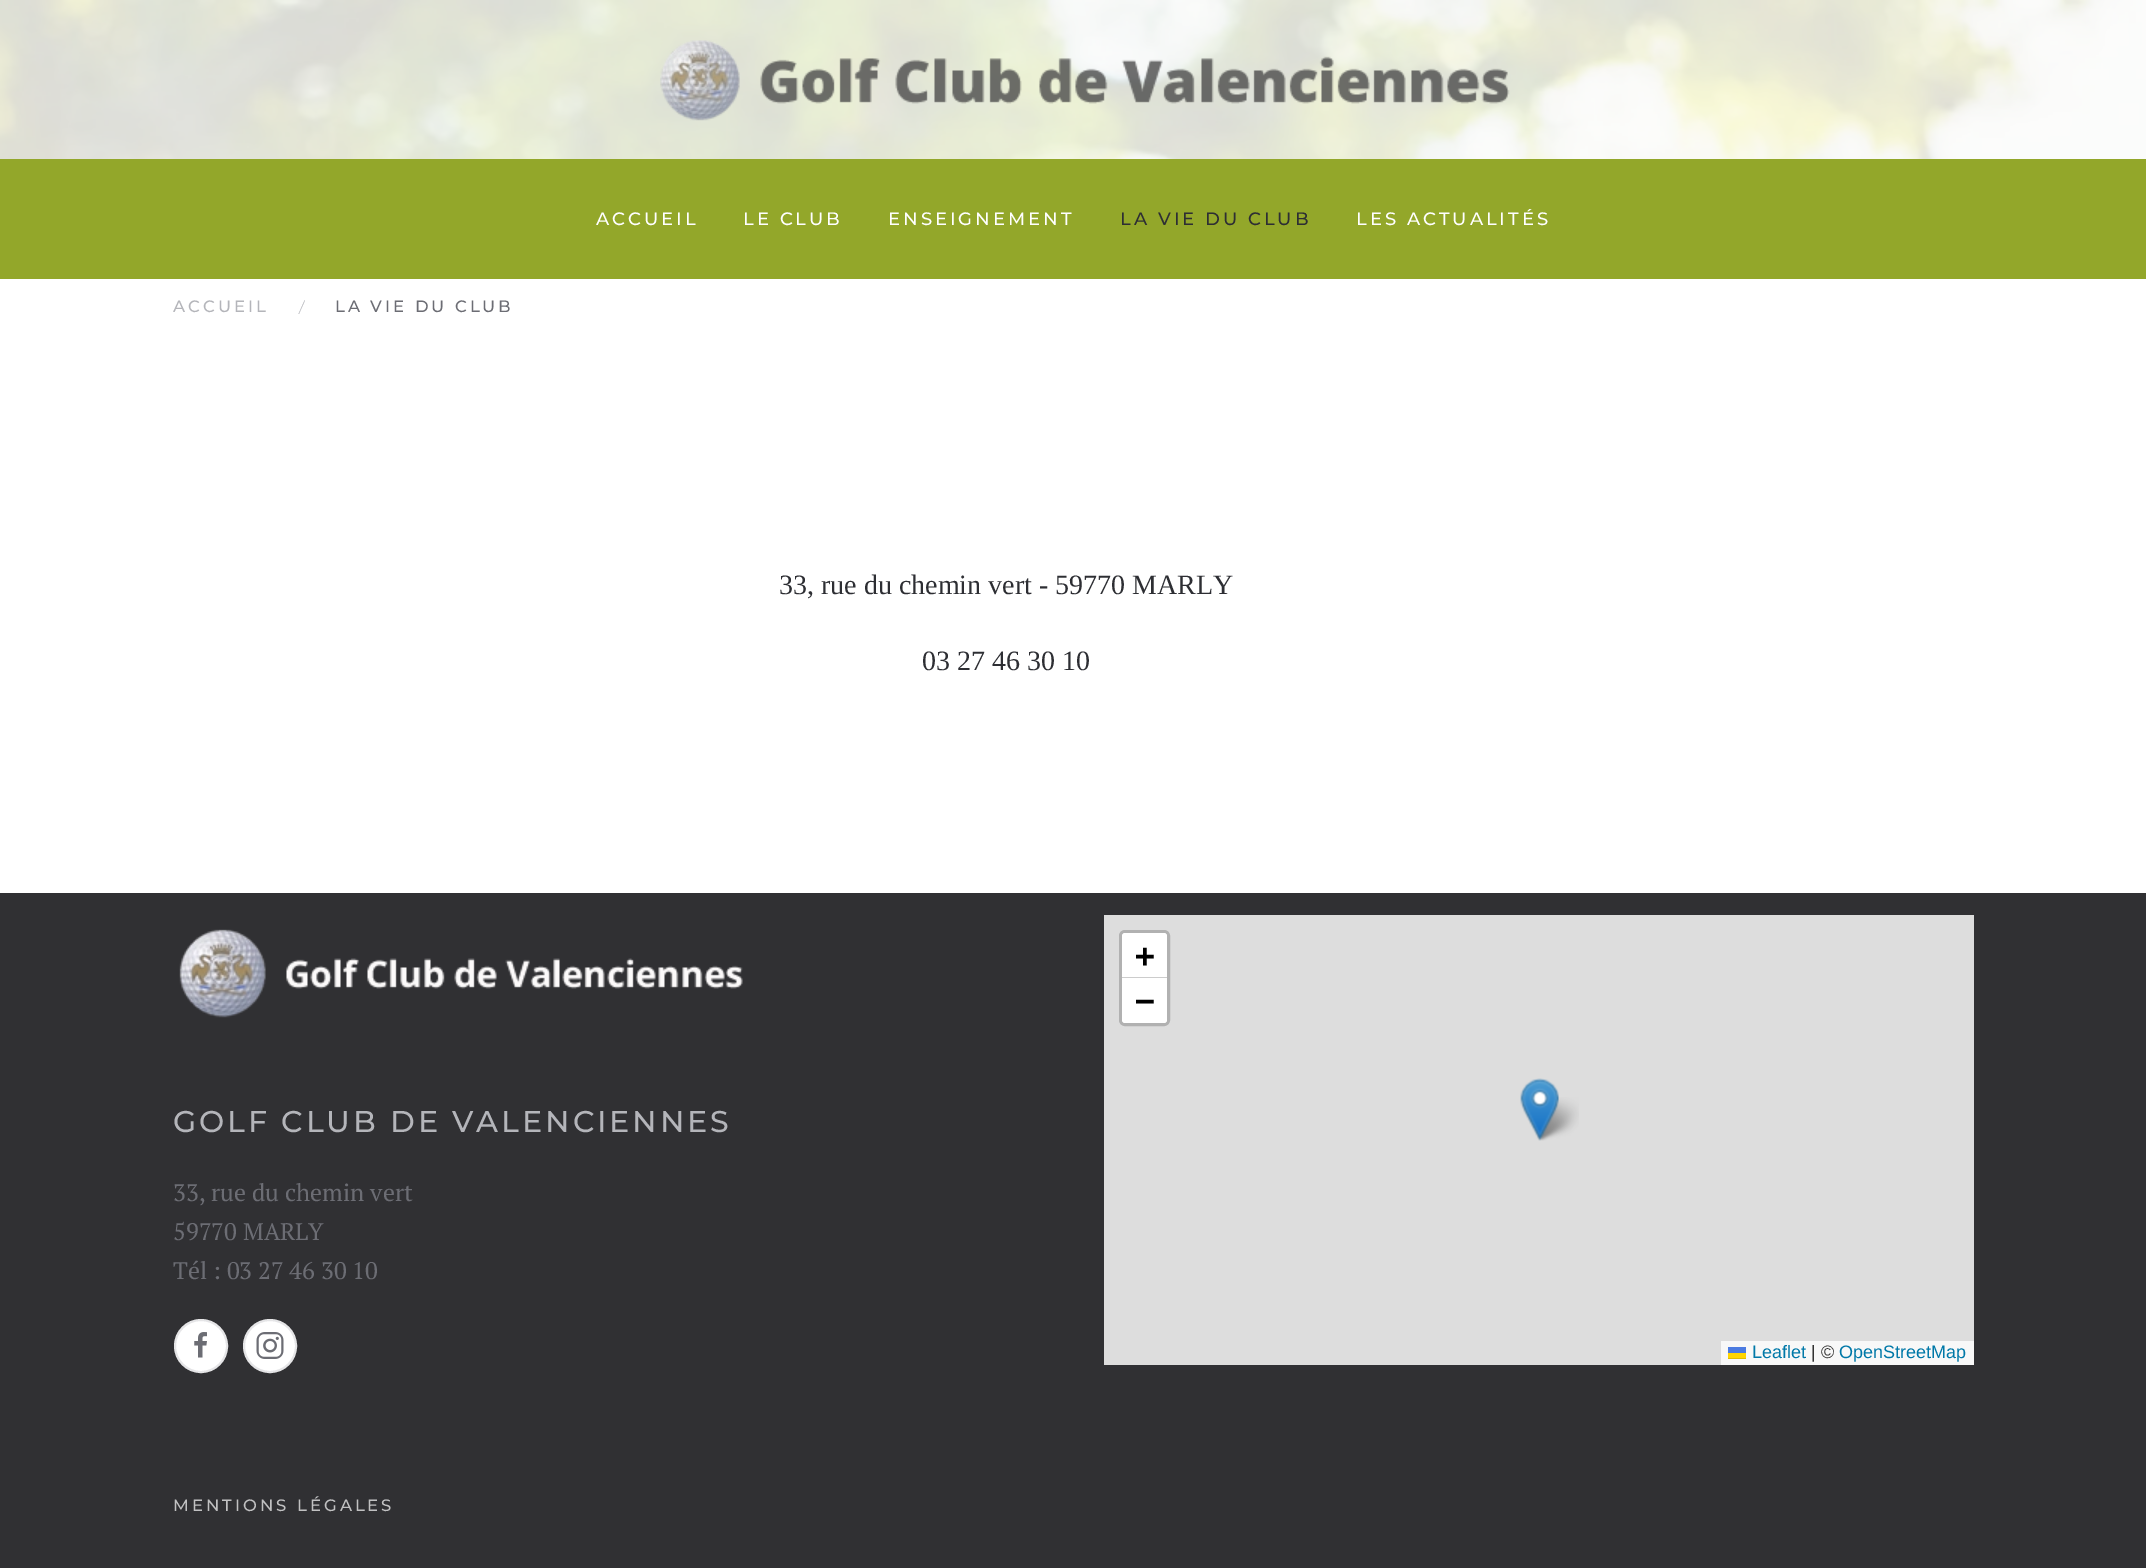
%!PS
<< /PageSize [2146 1568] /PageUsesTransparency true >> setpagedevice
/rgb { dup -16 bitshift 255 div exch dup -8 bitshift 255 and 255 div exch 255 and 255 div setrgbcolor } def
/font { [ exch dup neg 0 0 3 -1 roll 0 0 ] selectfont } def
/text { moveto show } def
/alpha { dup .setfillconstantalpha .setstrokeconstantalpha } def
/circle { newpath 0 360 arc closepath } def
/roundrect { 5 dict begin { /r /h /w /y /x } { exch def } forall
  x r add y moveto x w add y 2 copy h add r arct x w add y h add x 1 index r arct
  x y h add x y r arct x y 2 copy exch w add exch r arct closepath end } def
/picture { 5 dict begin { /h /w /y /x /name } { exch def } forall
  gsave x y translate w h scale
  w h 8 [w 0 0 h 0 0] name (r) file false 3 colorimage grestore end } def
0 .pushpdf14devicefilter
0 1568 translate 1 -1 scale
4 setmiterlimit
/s1 { /PTSerif-Regular 16.5 font 16#B4B5BA rgb } def
/s2 { /LiberationSerif-Regular 28 font 16#2D2E33 rgb } def
/s3 { /PTSerif-Regular 24 font 16#6C6D74 rgb } def
/s4 { /DejaVuSansMono-Bold 33 font 16#000000 rgb } def
/s5 { /LiberationSans-Regular 18 font 16#0078A8 rgb } def
/s6 { /LiberationSans-Regular 18 font 16#333333 rgb } def
16#FFFFFF rgb
0 0 2146 1568 rectfill
(pic1.raw) 0 0 2146 159 picture
0.8 alpha
0 0 2146 159 rectfill
1 alpha
(pic2.raw) 660 40 850 81 picture
16#93A72A rgb
0 159 2146 120 rectfill
/Montserrat-Thin 18 font
16#FFFFFF rgb
596 225 moveto 3 0 (ACCUEIL) ashow
743 225 moveto 3 0 (LE CLUB) ashow
888 225 moveto 3 0 (ENSEIGNEMENT) ashow
16#2D2E33 rgb
1120 225 moveto 3 0 (LA VIE DU CLUB) ashow
16#FFFFFF rgb
1356 225 moveto 3 0 (LES ACTUALITÉS) ashow
/Montserrat-Thin 16.5 font
16#B4B5BA rgb
173 312 moveto 3 0 (ACCUEIL) ashow
s1
(/) 299 312 text
/Montserrat-Thin 16.5 font
16#6C6D74 rgb
335 312 moveto 3 0 (LA VIE DU CLUB) ashow
s2
(33, rue du chemin vert - 59770 MARLY) 779 594 text
(03 27 46 30 10) 922 670 text
16#303033 rgb
0 893 2146 675 rectfill
(pic3.raw) 179 929 564 89 picture
/Montserrat-Thin 30 font
16#B4B5BA rgb
173 1132 moveto 3 0 (GOLF CLUB DE VALENCIENNES) ashow
s3
(33, rue du chemin vert) 173 1201 text
(59770 MARLY) 173 1240 text
(Tél : 03 27 46 30 10) 173 1279 text
16#FFFFFF rgb
201 1346 26 circle gsave fill grestore
16#E5E5E7 rgb
2 setlinewidth
stroke
(pic4.raw) 194 1332 13 26 picture
16#FFFFFF rgb
270 1346 26 circle gsave fill grestore
16#E5E5E7 rgb
stroke
(pic5.raw) 256 1332 28 27 picture
16#DDDDDD rgb
1104 915 870 450 rectfill
16#B1B1B1 rgb
3 setlinewidth
1120.5 931.5 48 93 4.5 roundrect stroke
16#FFFFFF rgb
1125 933 moveto 1164 933 lineto 1165.5 933 1167 934.5 1167 936 curveto 1167 978 lineto 1122 978 lineto 1122 936 lineto 1122 934.5 1123.5 933 1125 933 curveto closepath fill
16#CCCCCC rgb
1122 977 45 1 rectfill
s4
(+) 1135 967 text
16#FFFFFF rgb
1122 978 moveto 1167 978 lineto 1167 1020 lineto 1167 1021.5 1165.5 1023 1164 1023 curveto 1125 1023 lineto 1123.5 1023 1122 1021.5 1122 1020 curveto closepath fill
s4
(−) 1135 1012 text
16#F8F8F8 rgb
1721 1341 253 24 rectfill
s5
(Leaflet) 1752 1358 text
16#4C7BE1 rgb
1728 1347 18 6 rectfill
16#FFD500 rgb
1728 1353 18 5 rectfill
16#E0BC00 rgb
1728 1358 18 1 rectfill
s6
(| ©) 1811 1358 text
s5
(OpenStreetMap) 1839 1358 text
(pic7.raw) 1534 1097 45 44 picture
(pic6.raw) 1520 1078 39 63 picture
/Montserrat-Thin 16.5 font
16#C1C1C2 rgb
173 1511 moveto 3 0 (MENTIONS LÉGALES) ashow
.poppdf14devicefilter showpage
